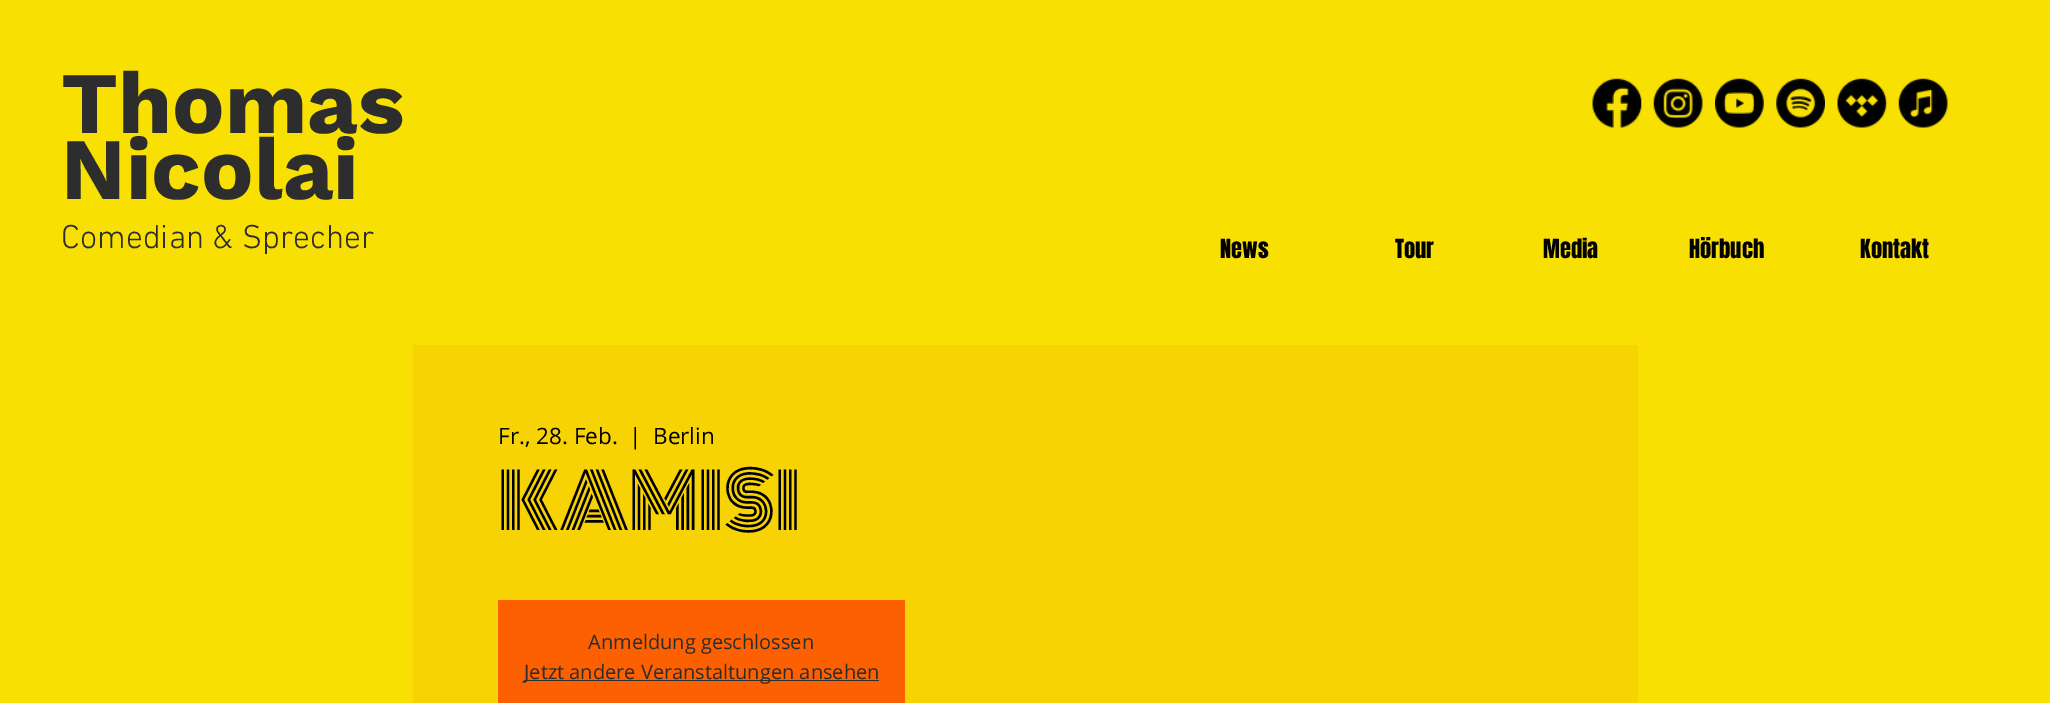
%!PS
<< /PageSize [2050 703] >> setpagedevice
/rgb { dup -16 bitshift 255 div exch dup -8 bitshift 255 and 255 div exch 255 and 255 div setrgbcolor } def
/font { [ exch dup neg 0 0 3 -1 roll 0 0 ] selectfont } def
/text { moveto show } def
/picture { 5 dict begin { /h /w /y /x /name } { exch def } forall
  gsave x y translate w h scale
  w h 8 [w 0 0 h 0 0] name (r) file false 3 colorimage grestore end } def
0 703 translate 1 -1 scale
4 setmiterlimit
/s1 { /WorkSans-Bold 87.5 font 16#2D2D2D rgb } def
/s2 { /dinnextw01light-Light 33.75 font 16#2D2D2D rgb } def
/s3 { /Anton-Regular 22.5 font 16#000000 rgb } def
/s4 { /OpenSans-Regular 22.5 font 16#000000 rgb } def
/s5 { /Monoton-Regular 75 font 16#000000 rgb } def
/s6 { /OpenSans-Regular 20 font 16#2D2D2D rgb } def
16#F8E003 rgb
0 0 2050 703 rectfill
s1
(Thomas) 61 133 text
(Nicolai) 61 199 text
s2
(Comedian & Sprecher) 61 248 text
(pic1.raw) 1592 78 50 50 picture
(pic2.raw) 1653 78 50 50 picture
(pic3.raw) 1715 78 49 50 picture
(pic4.raw) 1776 78 49 50 picture
(pic5.raw) 1837 78 50 50 picture
(pic6.raw) 1898 78 50 50 picture
s3
(News) 1220 258 text
(Tour) 1395 258 text
(Media) 1543 258 text
(Hörbuch) 1689 258 text
(Kontakt) 1860 258 text
16#F8D303 rgb
413 345 1225 358 rectfill
s4
(Fr., 28. Feb.) 498 444 text
(|) 629 444 text
(Berlin) 653 444 text
s5
(KAMISI) 498 530 text
16#FC6000 rgb
498 600 407 103 rectfill
s6
(Anmeldung geschlossen) 588 649 text
524 680 355 1 rectfill
(Jetzt andere Veranstaltungen ansehen) 524 679 text
showpage
